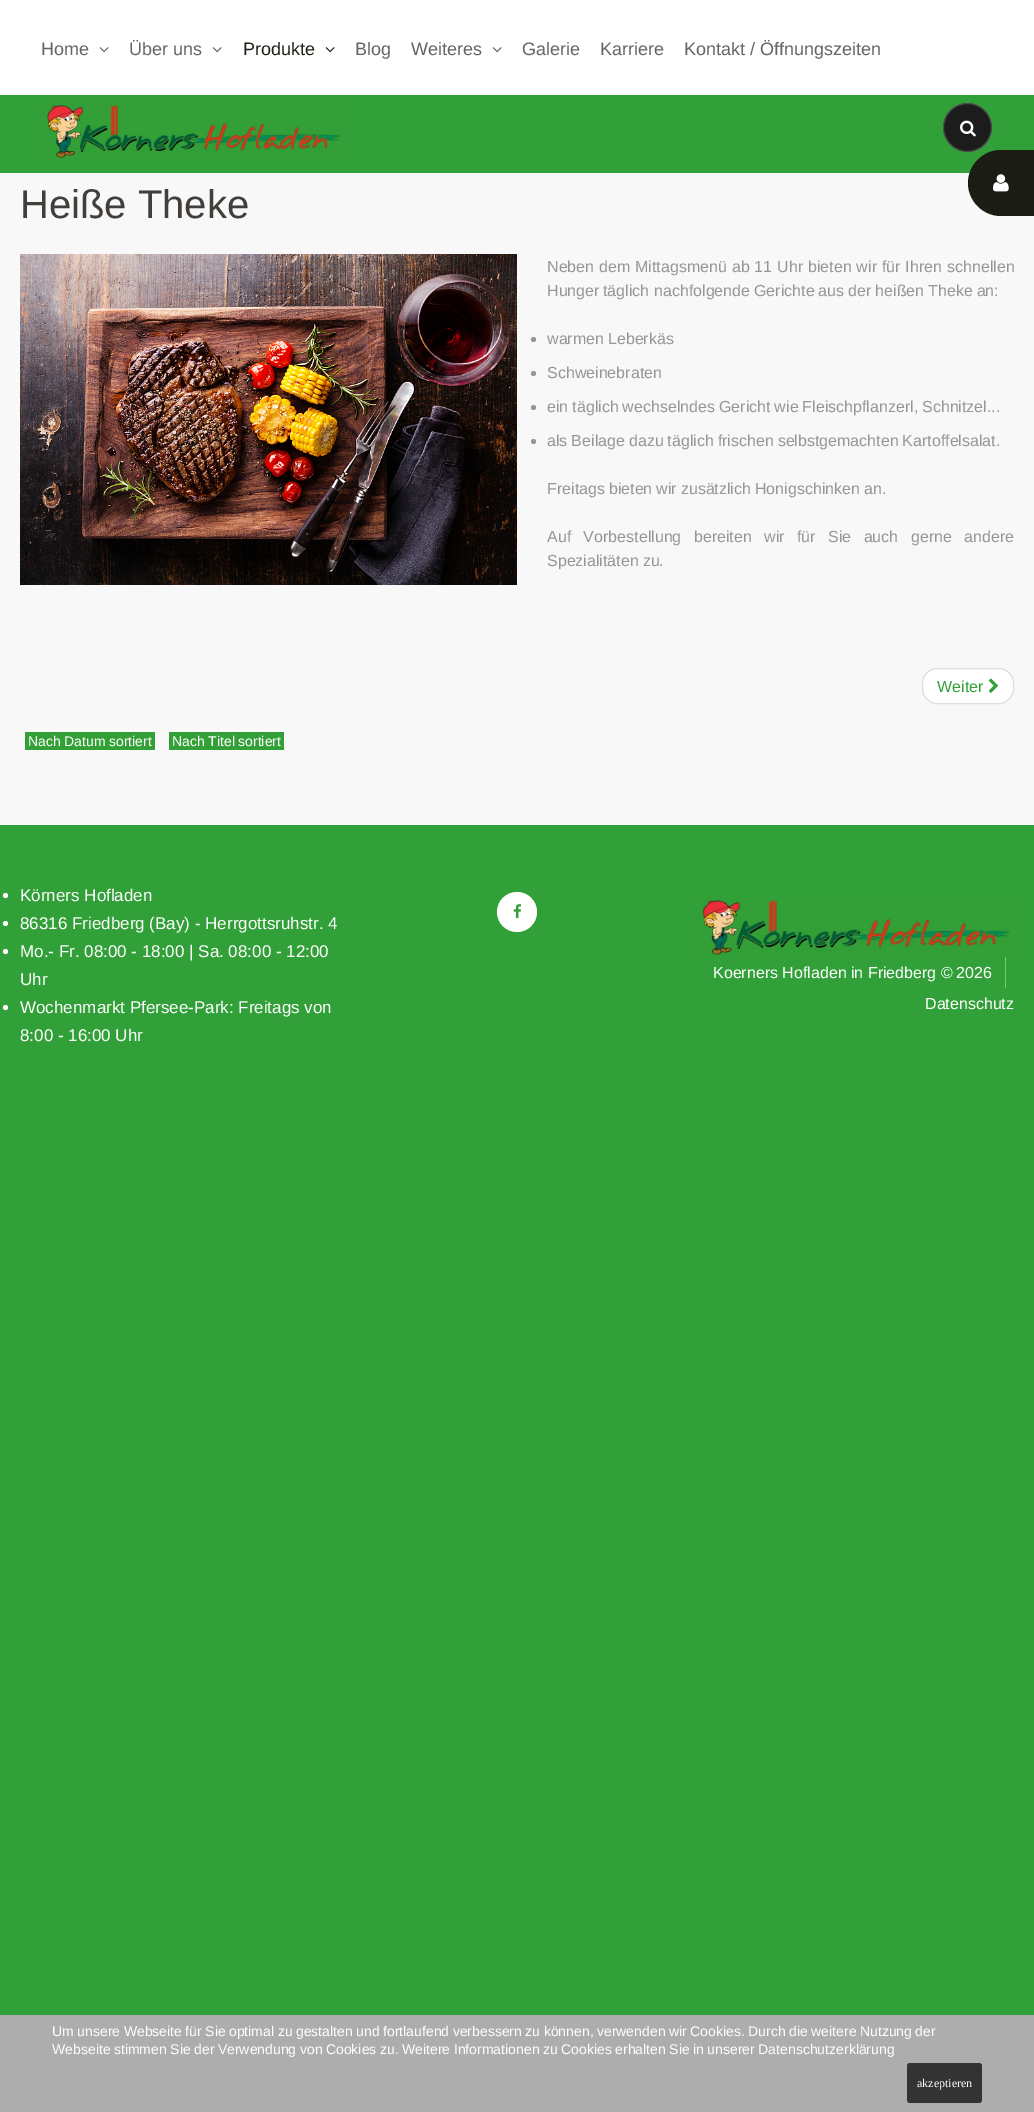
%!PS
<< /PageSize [1034 2112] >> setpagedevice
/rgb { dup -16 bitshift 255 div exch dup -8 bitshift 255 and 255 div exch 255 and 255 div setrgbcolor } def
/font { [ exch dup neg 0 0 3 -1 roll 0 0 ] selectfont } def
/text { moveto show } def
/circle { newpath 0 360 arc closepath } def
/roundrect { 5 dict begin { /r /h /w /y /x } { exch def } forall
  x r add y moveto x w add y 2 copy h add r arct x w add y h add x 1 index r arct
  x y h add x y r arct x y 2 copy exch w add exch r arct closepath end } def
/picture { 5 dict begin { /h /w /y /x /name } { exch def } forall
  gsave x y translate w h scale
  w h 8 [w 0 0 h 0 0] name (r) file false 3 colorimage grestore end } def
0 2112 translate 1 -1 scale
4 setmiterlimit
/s1 { /LiberationSans-Regular 18 font 16#656565 rgb } def
/s2 { /LiberationSans-Regular 18 font 16#222118 rgb } def
/s3 { /LiberationSans-Regular 40 font 16#423E3B rgb } def
/s4 { /LiberationSans-Regular 16 font 16#969696 rgb } def
/s5 { /LiberationSans-Regular 16 font 16#32A037 rgb } def
/s6 { /LiberationSans-Regular 17 font 16#FFFFFF rgb } def
/s7 { /LiberationSans-Regular 16 font 16#FFFFFF rgb } def
/s8 { /LiberationSerif-Regular 12 font 16#FFFFFF rgb } def
16#32A038 rgb
0 0 1034 2112 rectfill
16#FFFFFF rgb
0 0 1034 95 rectfill
s1
(Home) 41 55 text
(pic1.raw) 99 47 10 6 picture
(Über uns) 129 55 text
(pic1.raw) 212 47 10 6 picture
s2
(Produkte) 243 55 text
(pic2.raw) 325 47 10 6 picture
s1
(Blog) 355 55 text
(Weiteres) 411 55 text
(pic1.raw) 492 47 10 6 picture
(Galerie) 522 55 text
(Karriere) 600 55 text
(Kontakt / Öffnungszeiten) 684 55 text
(pic3.raw) 47 103 295 55 picture
16#1C1C1C rgb
967.5 127.5 24 circle gsave fill grestore
16#4C4C4C rgb
stroke
(pic4.raw) 960 120 16 17 picture
16#F8F8F8 rgb
0 173 1034 652 rectfill
s3
(Heiße Theke) 20 218 text
(pic5.raw) 20 254 497 331 picture
/LiberationSans-Regular 16 font
16#969696 rgb
547 272 moveto 0.5 0 32 (Neben dem Mittagsmenü ab 11 Uhr bieten wir für Ihren schnellen) widthshow
(Hunger) 547 296 text
(täglich) 603 296 text
654 296 moveto -0.5 0 32 (nachfolgende Gerichte aus der heißen Theke an:) widthshow
533.5 339.5 2.5 circle fill
547 344 moveto -0.5 0 32 (warmen Leberkäs) widthshow
533.5 373.5 2.5 circle fill
(Schweinebraten) 547 378 text
533.5 407.5 2.5 circle fill
547 412 moveto -0.5 0 32 (ein täglich wechselndes Gericht wie Fleischpflanzerl, Schnitzel...) widthshow
533.5 441.5 2.5 circle fill
547 446 moveto -0.5 0 32 (als Beilage dazu täglich frischen selbstgemachten Kartoffelsalat.) widthshow
547 494 moveto -0.5 0 32 (Freitags bieten wir zusätzlich Honigschinken an.) widthshow
547 542 moveto 8 0 32 (Auf Vorbestellung bereiten wir für Sie auch gerne andere) widthshow
547 566 moveto -0.5 0 32 (Spezialitäten zu.) widthshow
16#FFFFFF rgb
922.5 668.5 91 35 14.5 roundrect gsave fill grestore
16#DDDDDD rgb
stroke
s5
(Weiter) 937 692 text
(pic6.raw) 988 678 10 15 picture
25 732 130 18 rectfill
/LiberationSans-Regular 14 font
16#FFFFFF rgb
28 746 moveto -0.4 0 32 (Nach Datum sortiert) widthshow
16#32A037 rgb
169 732 115 18 rectfill
16#FFFFFF rgb
172 746 moveto -0.4 0 32 (Nach Titel sortiert) widthshow
16#1B1C14 rgb
1001 150 moveto 1034 150 lineto 1034 216 lineto 1001 216 lineto 983 216 968 201 968 183 curveto 968 165 983 150 1001 150 curveto closepath fill
(pic7.raw) 993 174 16 18 picture
16#FFFFFF rgb
5.5 895.5 2.5 circle fill
s6
(Körners Hofladen) 20 901 text
5.5 923.5 2.5 circle fill
(86316 Friedberg \(Bay\) - Herrgottsruhstr. 4) 20 929 text
5.5 951.5 2.5 circle fill
(Mo.- Fr. 08:00 - 18:00 | Sa. 08:00 - 12:00) 20 957 text
(Uhr) 20 985 text
5.5 1007.5 2.5 circle fill
(Wochenmarkt Pfersee-Park: Freitags von) 20 1013 text
(8:00 - 16:00 Uhr) 20 1041 text
517 912 20 circle fill
(pic8.raw) 513 904 9 15 picture
(pic9.raw) 702 898 309 57 picture
s7
(Koerners Hofladen in Friedberg ©) 713 978 text
16#68D06D rgb
1005 957 1 31 rectfill
s7
(2026) 956 978 text
(Datenschutz) 925 1009 text
16#ADADAD rgb
0 2015 1034 97 rectfill
/LiberationSans-Regular 14 font
16#FFFFFF rgb
52 2036 moveto -0.4 0 32 (Um unsere Webseite für Sie optimal zu gestalten und fortlaufend verbessern zu können, verwenden wir Cookies. Durch die weitere Nutzung der) widthshow
52 2054 moveto -0.4 0 32 (Webseite stimmen Sie der Verwendung von Cookies zu. Weitere Informationen zu Cookies erhalten Sie in unserer Datenschutzerklärung) widthshow
16#333333 rgb
907 2063 75 40 3 roundrect fill
s8
(akzeptieren) 917 2087 text
showpage
